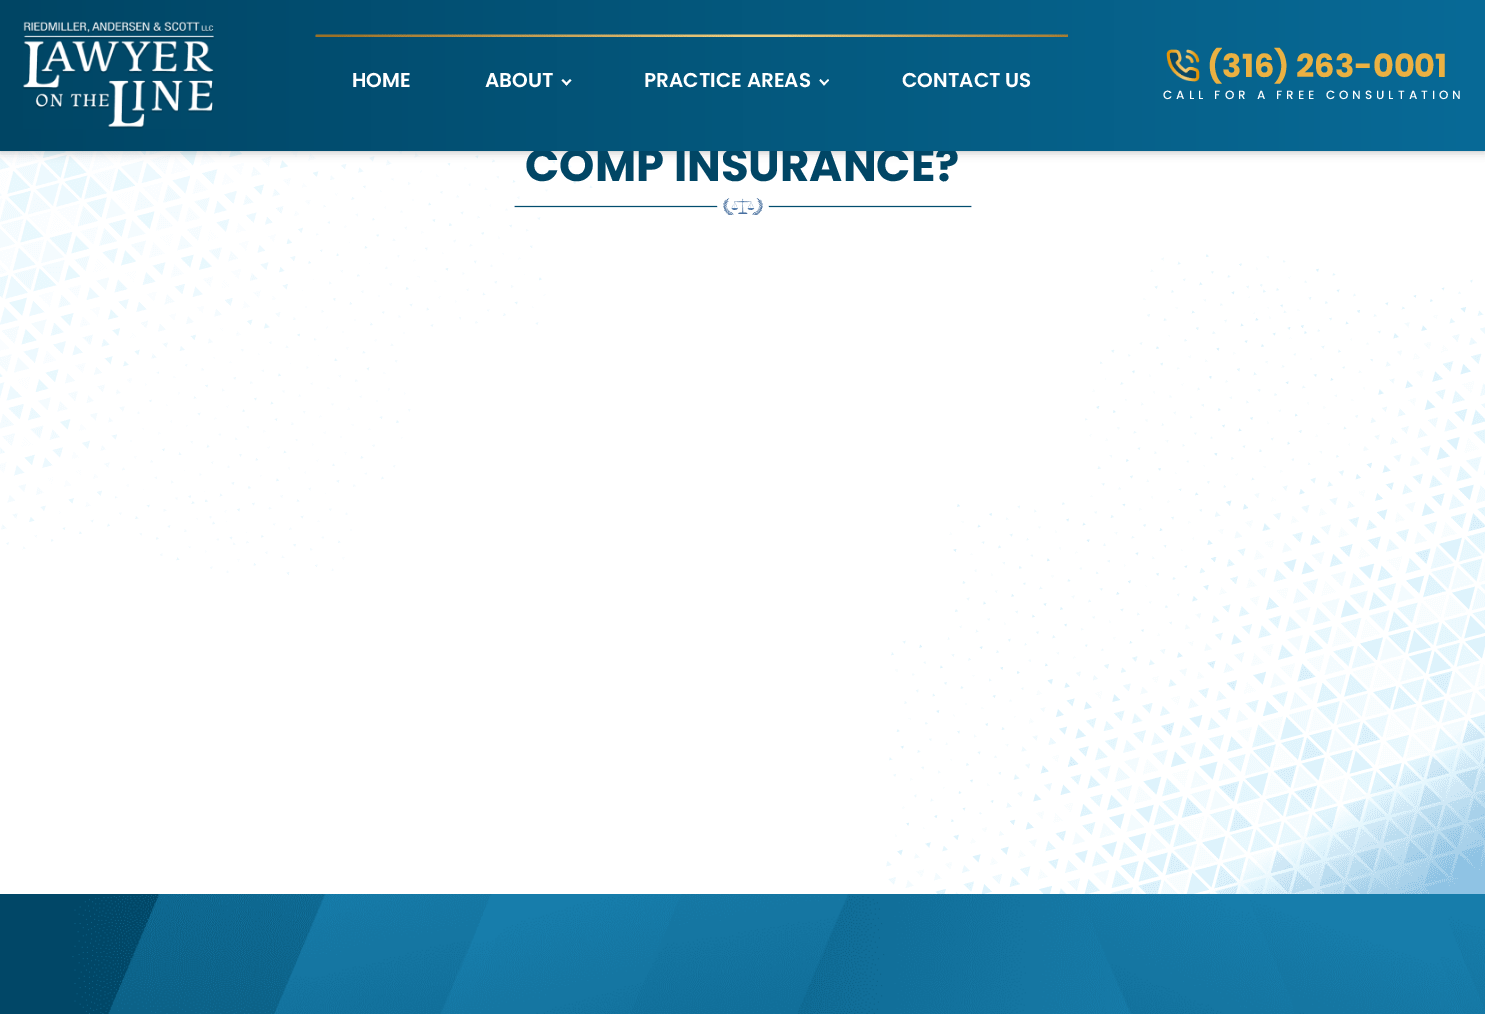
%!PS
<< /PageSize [1485 1014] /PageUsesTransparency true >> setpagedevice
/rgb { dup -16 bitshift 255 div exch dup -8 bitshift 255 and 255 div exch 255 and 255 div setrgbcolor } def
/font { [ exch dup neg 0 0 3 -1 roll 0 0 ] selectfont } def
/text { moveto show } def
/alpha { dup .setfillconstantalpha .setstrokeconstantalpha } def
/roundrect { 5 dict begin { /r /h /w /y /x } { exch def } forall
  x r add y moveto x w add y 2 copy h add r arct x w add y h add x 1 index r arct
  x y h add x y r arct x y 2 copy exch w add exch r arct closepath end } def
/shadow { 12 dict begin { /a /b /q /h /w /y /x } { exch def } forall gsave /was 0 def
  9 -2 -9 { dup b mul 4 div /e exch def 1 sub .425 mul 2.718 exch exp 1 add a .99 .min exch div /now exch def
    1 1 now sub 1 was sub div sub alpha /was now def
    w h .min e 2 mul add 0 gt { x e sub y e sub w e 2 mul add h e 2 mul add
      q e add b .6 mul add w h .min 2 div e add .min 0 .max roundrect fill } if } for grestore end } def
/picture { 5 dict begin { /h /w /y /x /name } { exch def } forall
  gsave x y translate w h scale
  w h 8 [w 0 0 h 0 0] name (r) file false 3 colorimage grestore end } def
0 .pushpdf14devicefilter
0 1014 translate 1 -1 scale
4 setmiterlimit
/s1 { /Poppins-Bold 45 font 16#014665 rgb } def
/s2 { /Poppins-SemiBold 20 font 16#FFFFFF rgb } def
/s3 { /Poppins-Bold 32 font 16#EBB142 rgb } def
16#FFFFFF rgb
0 0 1485 1014 rectfill
(pic4.raw) 0 151 604 424 picture
16#000000 rgb
0 0 1485 151 0 5 0.3 shadow
s1
(COMP INSURANCE?) 525 181 text
gsave 0 0 moveto 1485 0 lineto 1485 151 lineto 0 151 lineto closepath clip newpath
<< /ShadingType 2 /ColorSpace /DeviceRGB /Coords [0 76 1485 75] /Extend [true true] /Function << /FunctionType 2 /Domain [0 1] /C0 [0 0.271 0.392] /C1 [0.031 0.416 0.592] /N 1 >> >> shfill grestore
(pic1.raw) 23 21 192 108 picture
(pic2.raw) 315 34 753 3 picture
s2
(HOME) 352 87 text
(ABOUT) 485 87 text
571.5 80.5 moveto 566.5 85.5 lineto 565 84 lineto 570 79 lineto closepath fill
568 84 moveto 566.5 85.5 lineto 561.5 80.5 lineto 563 79 lineto closepath fill
(PRACTICE AREAS) 644 87 text
829 80.5 moveto 824 85.5 lineto 823 84 lineto 828 79 lineto closepath fill
825.5 84 moveto 824 85.5 lineto 819.5 80.5 lineto 820.5 79 lineto closepath fill
(CONTACT US) 902 87 text
(pic3.raw) 1166 49 34 33 picture
s3
(\(316\) 263-0001) 1207 77 text
/Poppins-Medium 12 font
16#FFFFFF rgb
1163 99 moveto 4 0 (CALL FOR A FREE CONSULTATION) ashow
(pic5.raw) 514 198 458 17 picture
(pic6.raw) 886 254 599 640 picture
(pic7.raw) 0 894 1485 120 picture
.poppdf14devicefilter showpage
